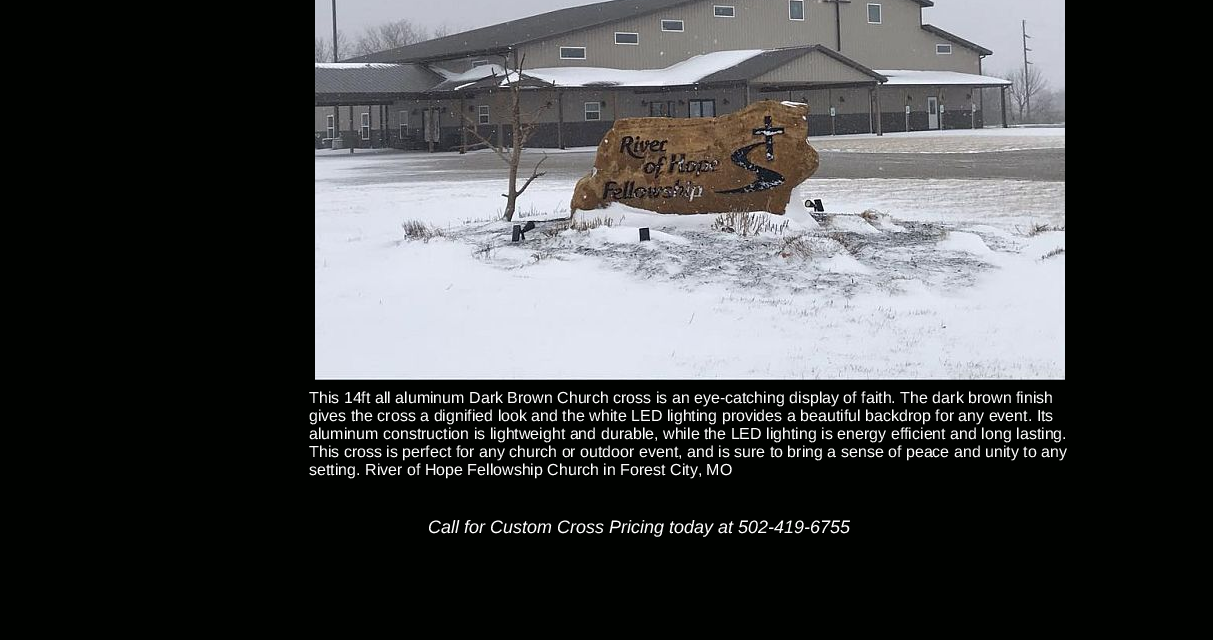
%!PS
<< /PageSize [1213 640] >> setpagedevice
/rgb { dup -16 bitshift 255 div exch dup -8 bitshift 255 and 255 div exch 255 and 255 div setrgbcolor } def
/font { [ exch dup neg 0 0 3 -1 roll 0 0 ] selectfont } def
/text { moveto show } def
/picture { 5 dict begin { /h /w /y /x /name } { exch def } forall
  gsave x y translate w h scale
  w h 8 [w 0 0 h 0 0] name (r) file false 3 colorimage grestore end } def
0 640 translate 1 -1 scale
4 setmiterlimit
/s1 { /LiberationSans-Regular 16 font 16#FFFFFF rgb } def
/s2 { /LiberationSans-Italic 18 font 16#FFFFFF rgb } def
16#000200 rgb
0 0 1213 640 rectfill
(pic1.raw) 315 0 750 380 picture
s1
(This 14ft all aluminum Dark Brown Church cross is an eye-catching display of faith. The dark brown finish) 309 403 text
(gives the cross a dignified look and the white LED lighting provides a beautiful backdrop for any event. Its) 309 421 text
(aluminum construction is lightweight and durable, while the LED lighting is energy efficient and long lasting.) 309 439 text
(This cross is perfect for any church or outdoor event, and is sure to bring a sense of peace and unity to any) 309 457 text
(setting. River of Hope Fellowship Church in Forest City, MO) 309 475 text
s2
(Call for Custom Cross Pricing today at 502-419-6755) 428 533 text
showpage
